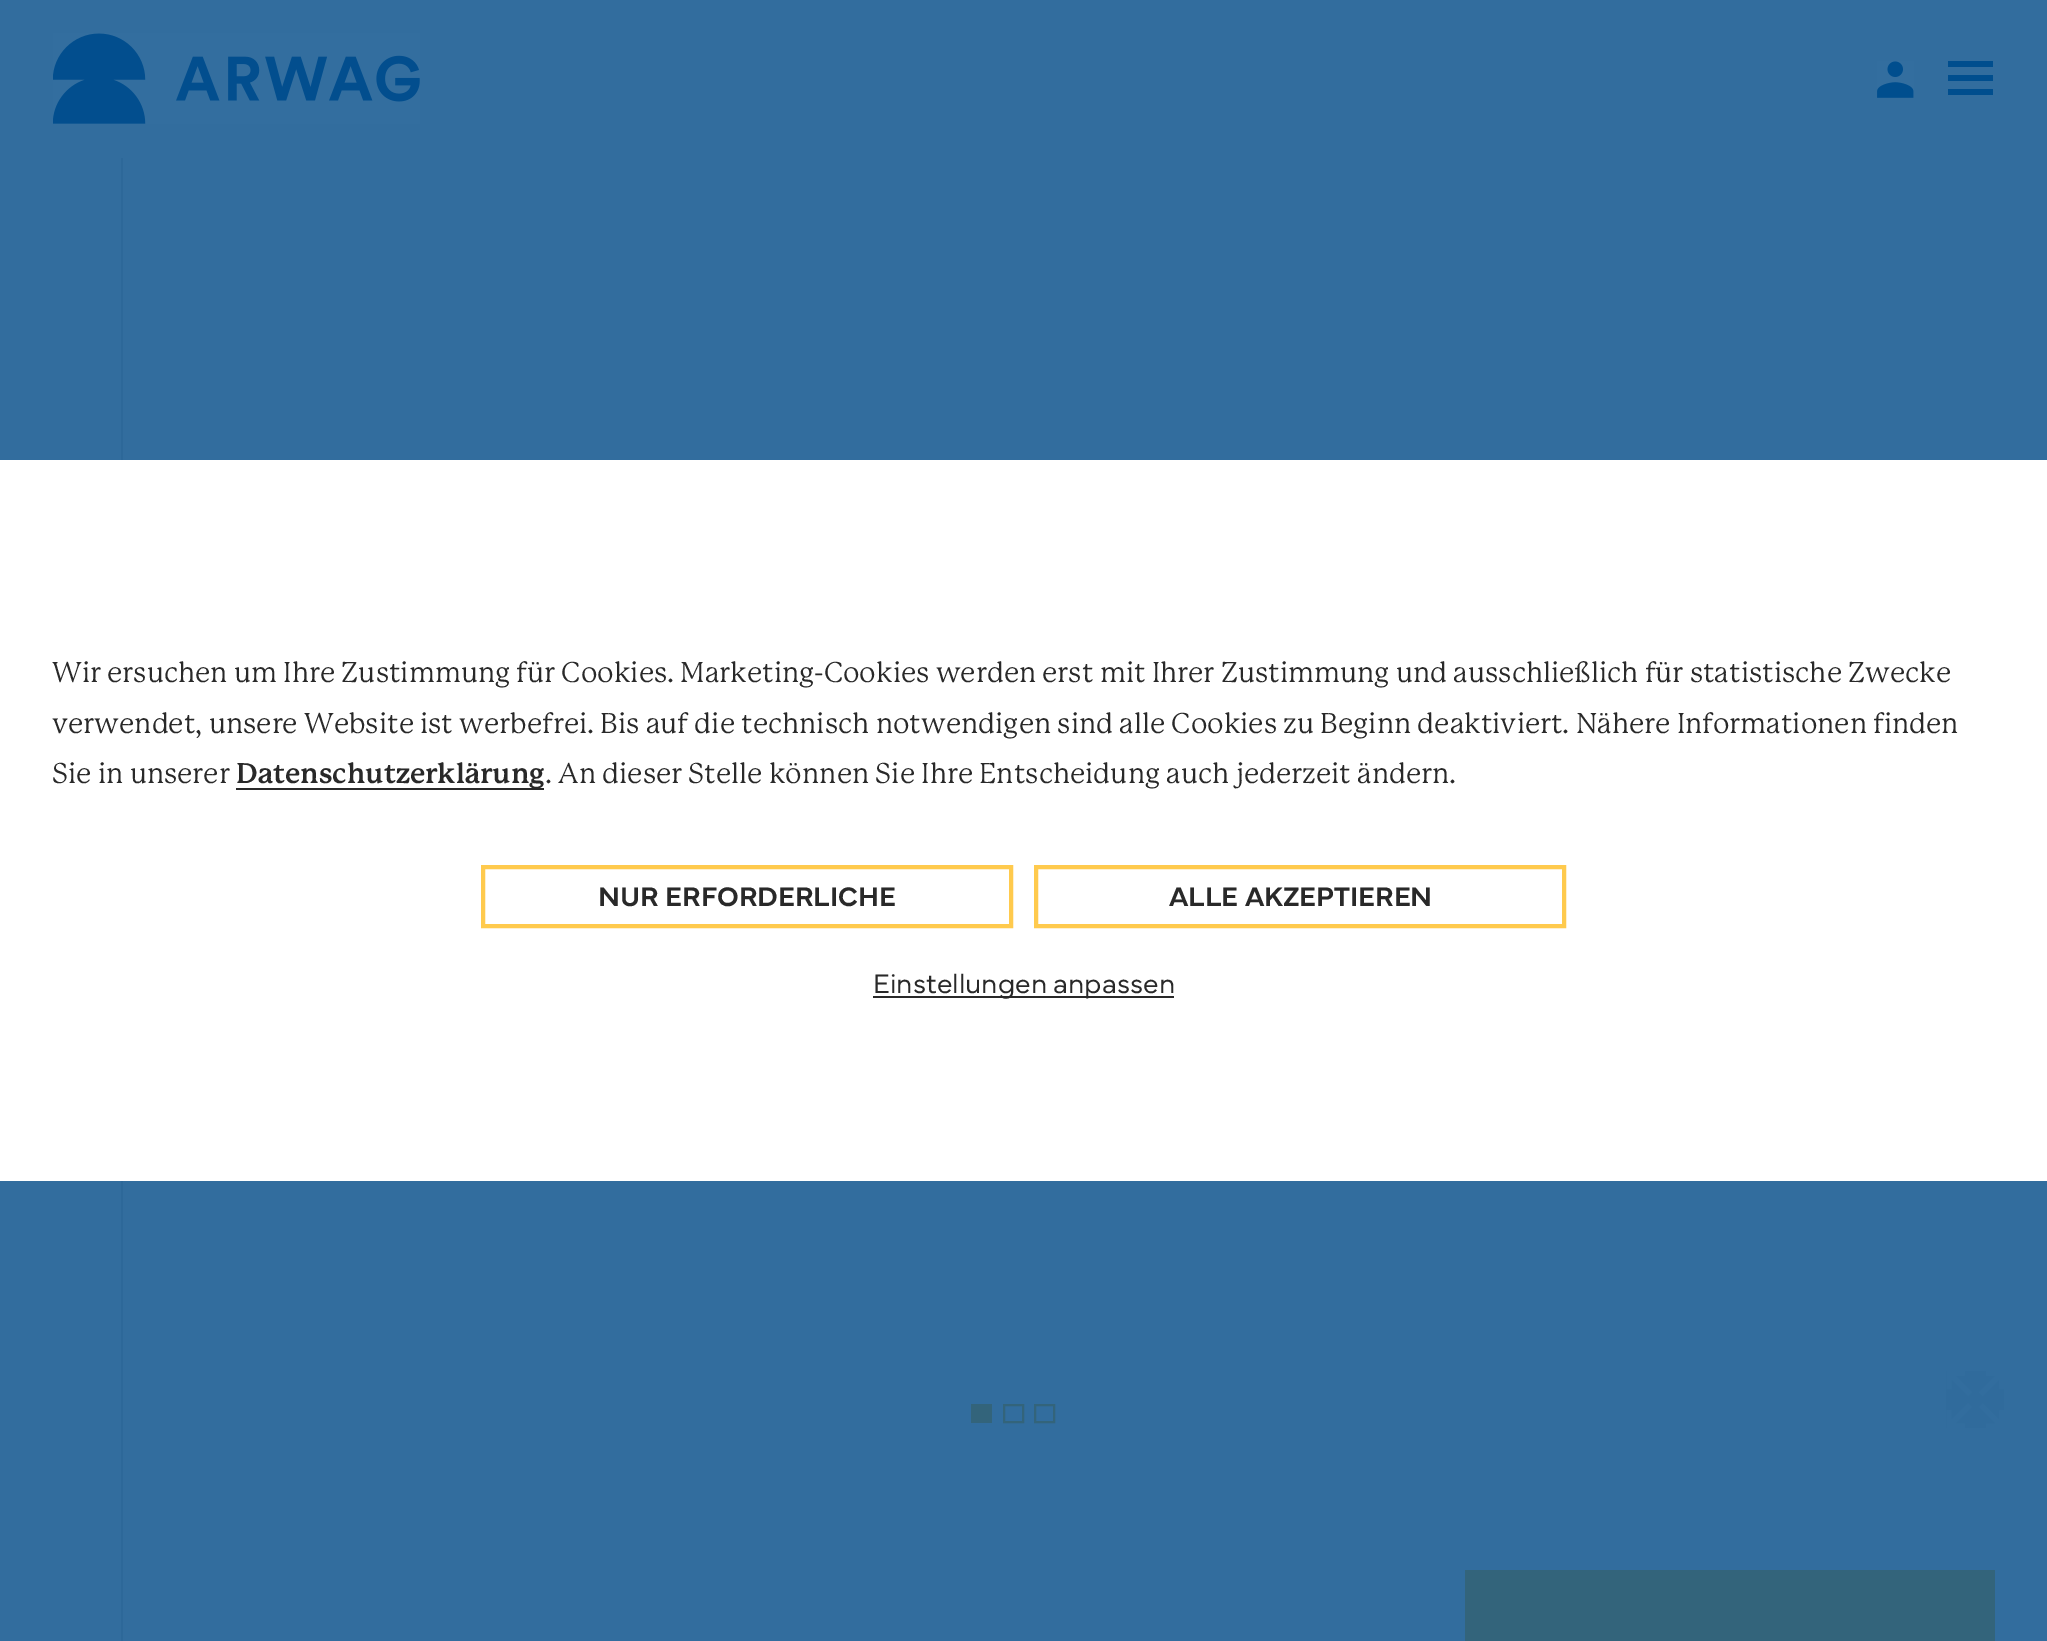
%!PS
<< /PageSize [2047 1641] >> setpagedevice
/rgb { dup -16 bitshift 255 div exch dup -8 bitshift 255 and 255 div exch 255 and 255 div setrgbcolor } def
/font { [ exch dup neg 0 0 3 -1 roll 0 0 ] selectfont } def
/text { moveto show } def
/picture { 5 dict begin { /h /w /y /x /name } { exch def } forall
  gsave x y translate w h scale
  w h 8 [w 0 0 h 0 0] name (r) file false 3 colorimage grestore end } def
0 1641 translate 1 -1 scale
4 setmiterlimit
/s1 { /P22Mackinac-Regular 28 font 16#292929 rgb } def
/s2 { /P22Mackinac-Bold 28 font 16#292929 rgb } def
/s3 { /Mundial-SemiBold 28 font 16#292929 rgb } def
/s4 { /Mundial-Light 28 font 16#292929 rgb } def
16#326D9E rgb
0 0 2047 1641 rectfill
(pic1.raw) 53 33 367 91 picture
(pic2.raw) 1877 61 37 37 picture
16#004E8E rgb
1948 61 45 6 rectfill
1948 75 45 6 rectfill
1948 89 45 6 rectfill
16#2D6899 rgb
121 158 2 1483 rectfill
16#33647B rgb
971 1404 21 19 rectfill
2 setlinewidth
1004 1405 19 17 rectstroke
1035 1405 19 17 rectstroke
(pic3.raw) 1946 1371 58 57 picture
1465 1570 530 71 rectfill
16#FFFFFF rgb
0 460 2047 721 rectfill
s1
(Wir ersuchen um Ihre Zustimmung für Cookies. Marketing-Cookies werden erst mit Ihrer Zustimmung und ausschließlich für statistische Zwecke) 52 682 text
(verwendet, unsere Website ist werbefrei. Bis auf die technisch notwendigen sind alle Cookies zu Beginn deaktiviert. Nähere Informationen finden) 52 733 text
(Sie in unserer) 52 783 text
236 788 308 2 rectfill
s2
(Datenschutzerklärung) 236 783 text
s1
(. An dieser Stelle können Sie Ihre Entscheidung auch jederzeit ändern.) 545 783 text
16#FFCA4D rgb
4 setlinewidth
483 867 528 59 rectstroke
s3
(NUR ERFORDERLICHE) 598 906 text
16#FFCA4D rgb
1036 867 528 59 rectstroke
s3
(ALLE AKZEPTIEREN) 1169 906 text
873 996 301 2 rectfill
s4
(Einstellungen anpassen) 873 993 text
showpage
